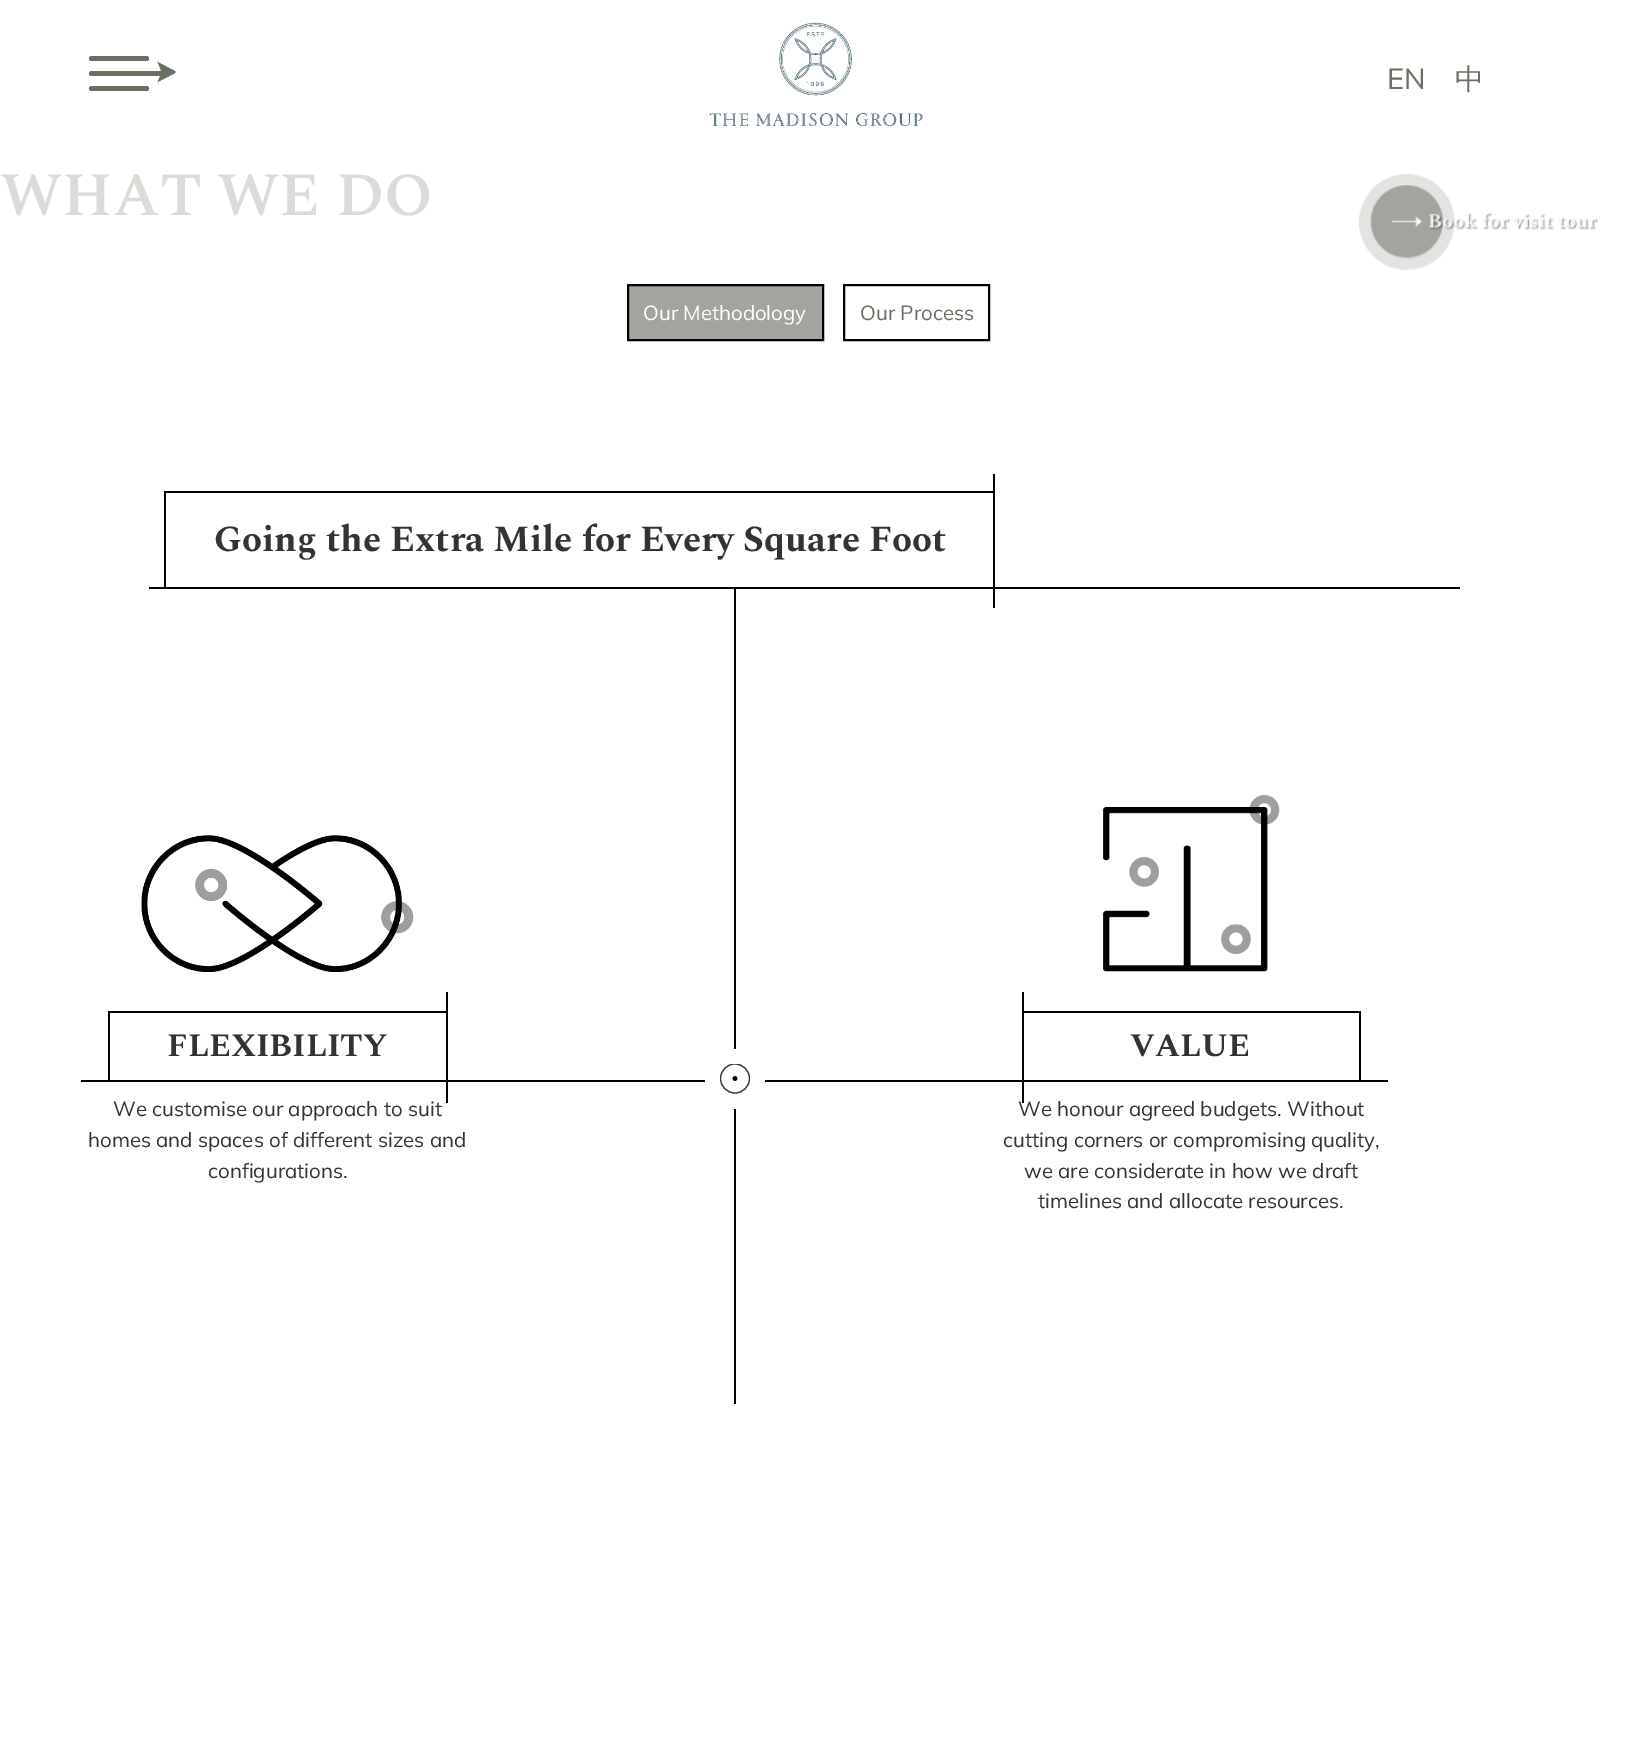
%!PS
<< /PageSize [1632 1740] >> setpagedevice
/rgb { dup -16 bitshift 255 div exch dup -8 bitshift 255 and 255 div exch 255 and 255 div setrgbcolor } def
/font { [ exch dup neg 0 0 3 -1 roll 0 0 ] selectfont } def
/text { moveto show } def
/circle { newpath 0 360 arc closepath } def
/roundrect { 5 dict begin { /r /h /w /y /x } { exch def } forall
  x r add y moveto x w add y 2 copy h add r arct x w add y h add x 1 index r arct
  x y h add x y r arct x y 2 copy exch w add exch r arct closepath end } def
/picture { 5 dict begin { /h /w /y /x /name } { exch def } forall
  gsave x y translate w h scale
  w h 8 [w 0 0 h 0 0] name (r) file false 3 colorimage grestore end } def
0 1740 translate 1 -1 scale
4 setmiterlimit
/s1 { /Mulish-Regular 29 font 16#687062 rgb } def
/s2 { /WenQuanYiZenHei-Medium 29 font 16#687062 rgb } def
/s3 { /Spectral-SemiBold 61.25 font 16#DADCD7 rgb } def
/s4 { /Mulish-Regular 20.4 font 16#FFFFFF rgb } def
/s5 { /Mulish-Regular 20.4 font 16#687062 rgb } def
/s6 { /Spectral-Bold 36.75 font 16#333333 rgb } def
/s7 { /Spectral-Bold 32.5 font 16#333333 rgb } def
/s8 { /Mulish-Regular 20.4 font 16#333333 rgb } def
16#FFFFFF rgb
0 0 1632 1740 rectfill
16#687062 rgb
89 56 60 5 2.5 roundrect fill
89 71 75 5 2.5 roundrect fill
89 86 60 5 2.5 roundrect fill
(pic1.raw) 157 61 19 22 picture
(pic2.raw) 709 22 214 104 picture
s1
(EN) 1387 89 text
s2
(中) 1455 89 text
s3
(WHAT WE DO) 0 215 text
16#A2A59F rgb
628 285 moveto 823 285 lineto 823 340 lineto 628 340 lineto closepath gsave fill grestore
16#000000 rgb
2 setlinewidth
stroke
s4
(Our Methodology) 643 320 text
16#000000 rgb
844 285 145 55 rectstroke
s5
(Our Process) 860 320 text
16#000000 rgb
164 491 831 2 rectfill
164 491 2 97 rectfill
s6
(Going the Extra Mile for Every Square Foot) 214 551 text
16#000000 rgb
149 587 1311 2 rectfill
993 474 2 134 rectfill
734 588 2 461 rectfill
(pic3.raw) 141 835 273 137 picture
108 1011 339 2 rectfill
108 1011 2 71 rectfill
s7
(FLEXIBILITY) 167 1056 text
16#000000 rgb
446 992 2 111 rectfill
81 1080 624 2 rectfill
gsave
720 1064 30 30 rectclip
16#393939 rgb
1.2 setlinewidth
735 1078.5 14.5 circle stroke
grestore
735 1078.5 2.3 circle fill
s8
(We customise our approach to suit) 113 1116 text
(homes and spaces of different sizes and) 88 1147 text
(configurations.) 208 1178 text
16#000000 rgb
734 1109 2 295 rectfill
(pic4.raw) 1103 795 177 177 picture
1022 1011 339 2 rectfill
1359 1011 2 71 rectfill
s8
(We honour agreed budgets. Without) 1018 1116 text
16#000000 rgb
1022 992 2 111 rectfill
s7
(VALUE) 1130 1056 text
16#000000 rgb
765 1080 623 2 rectfill
s8
(cutting corners or compromising quality,) 1003 1147 text
(we are considerate in how we draft) 1024 1178 text
(timelines and allocate resources.) 1038 1208 text
(pic5.raw) 1359 174 239 96 picture
showpage
